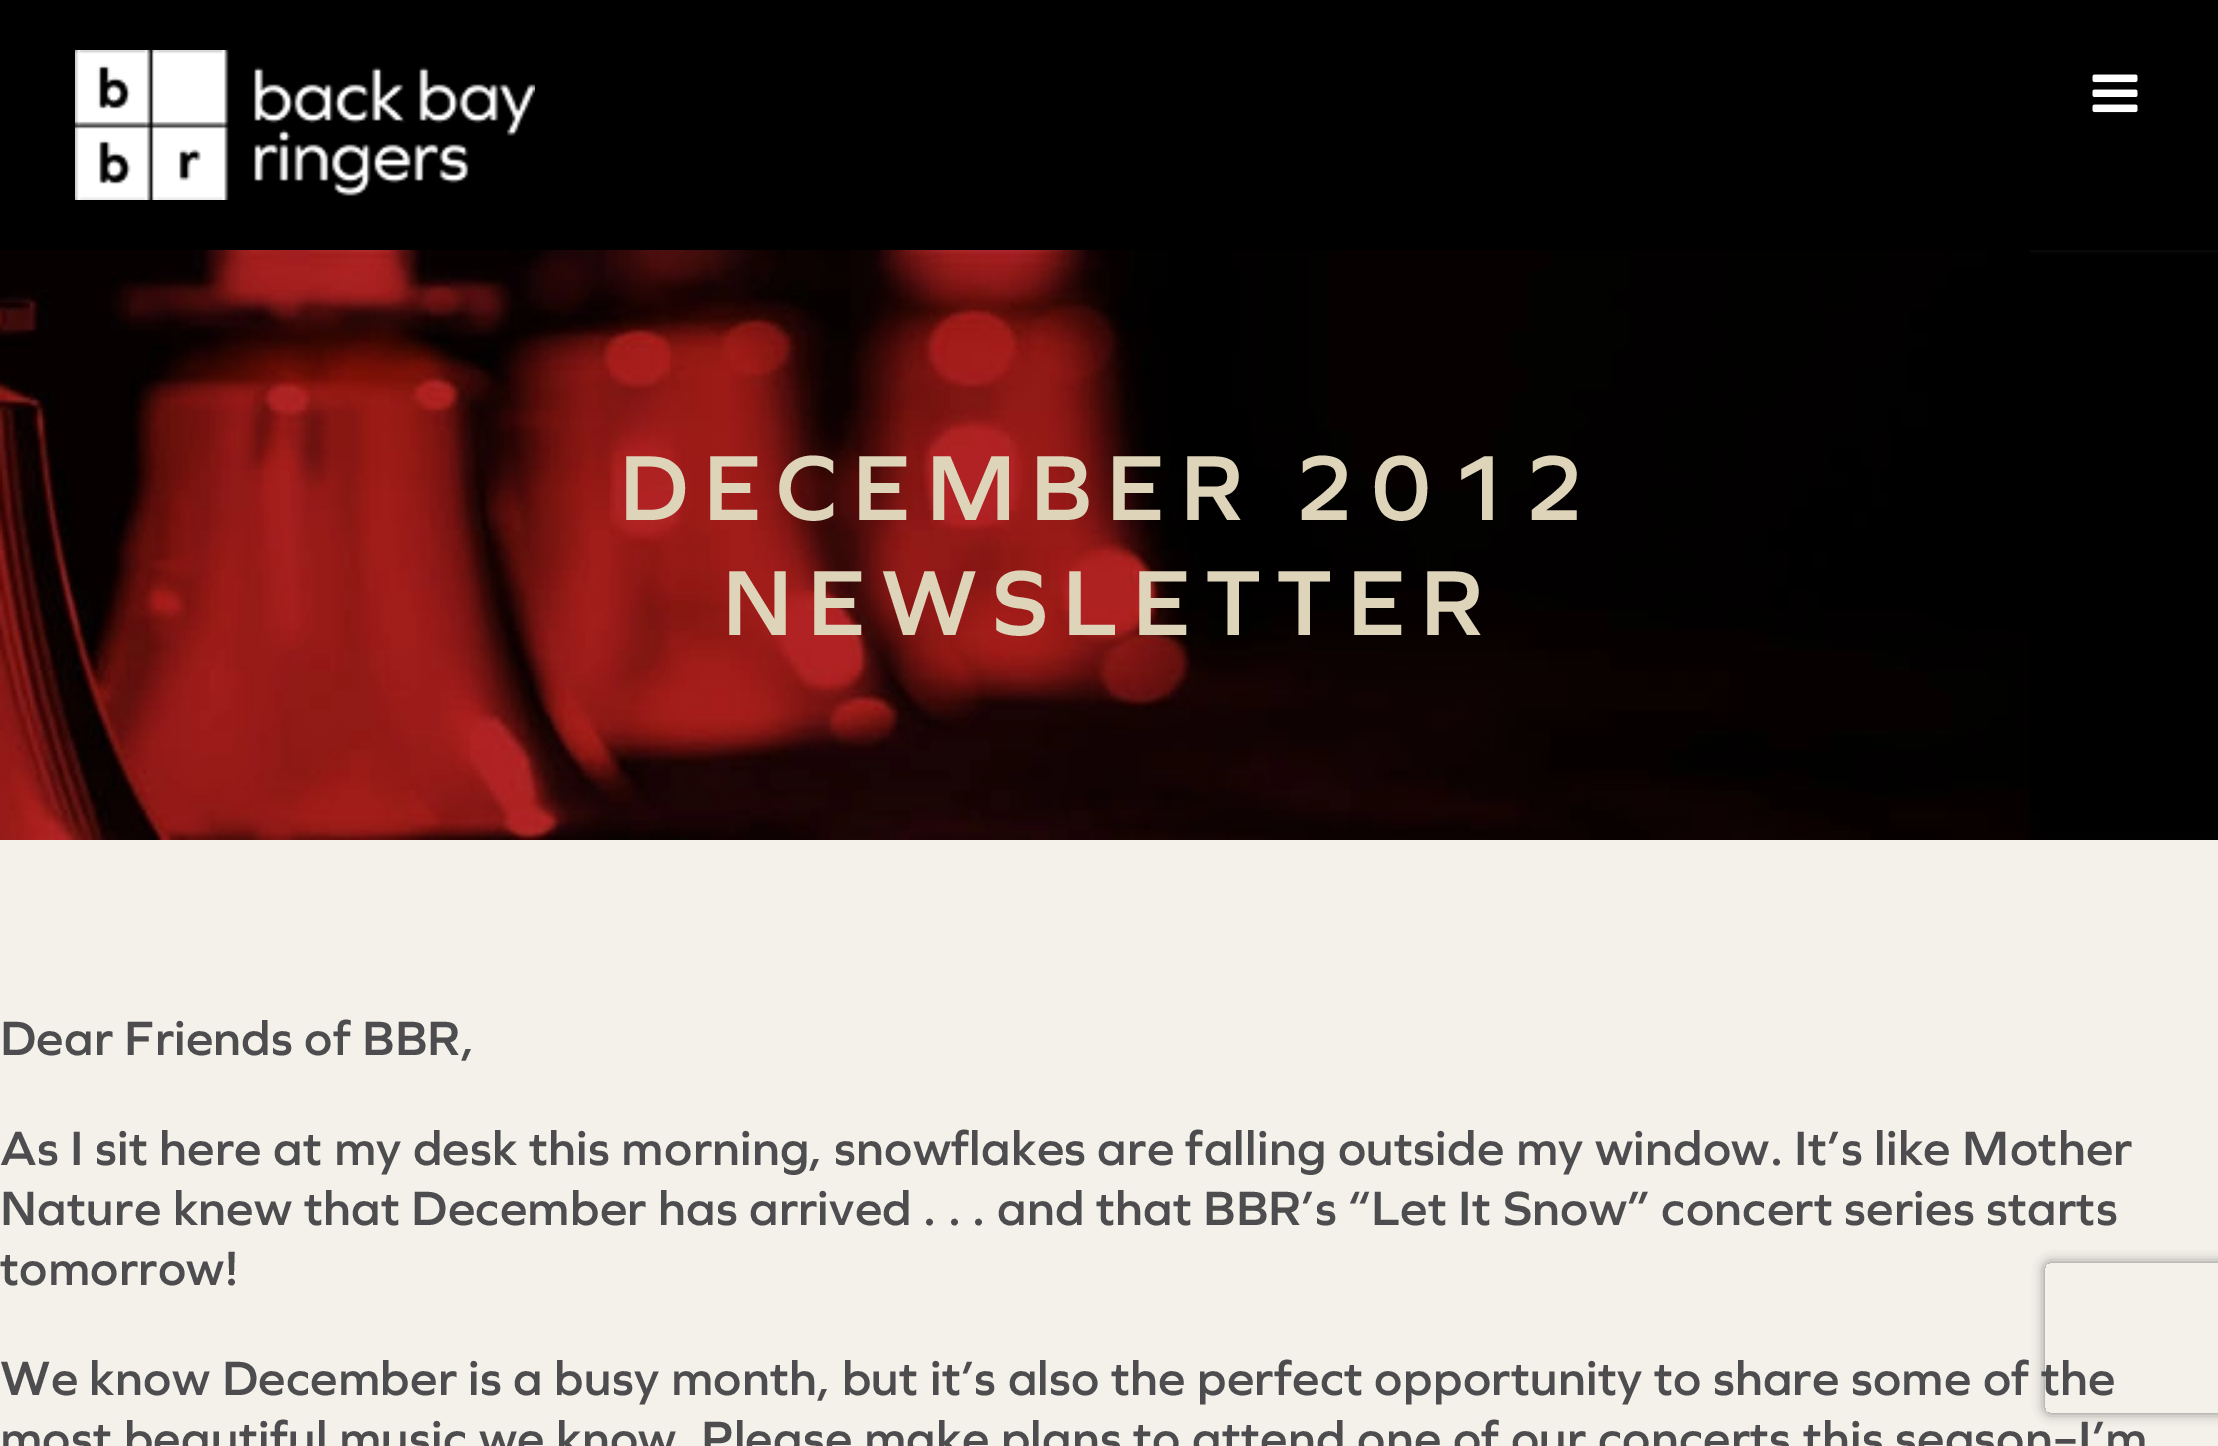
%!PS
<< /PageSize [2218 1446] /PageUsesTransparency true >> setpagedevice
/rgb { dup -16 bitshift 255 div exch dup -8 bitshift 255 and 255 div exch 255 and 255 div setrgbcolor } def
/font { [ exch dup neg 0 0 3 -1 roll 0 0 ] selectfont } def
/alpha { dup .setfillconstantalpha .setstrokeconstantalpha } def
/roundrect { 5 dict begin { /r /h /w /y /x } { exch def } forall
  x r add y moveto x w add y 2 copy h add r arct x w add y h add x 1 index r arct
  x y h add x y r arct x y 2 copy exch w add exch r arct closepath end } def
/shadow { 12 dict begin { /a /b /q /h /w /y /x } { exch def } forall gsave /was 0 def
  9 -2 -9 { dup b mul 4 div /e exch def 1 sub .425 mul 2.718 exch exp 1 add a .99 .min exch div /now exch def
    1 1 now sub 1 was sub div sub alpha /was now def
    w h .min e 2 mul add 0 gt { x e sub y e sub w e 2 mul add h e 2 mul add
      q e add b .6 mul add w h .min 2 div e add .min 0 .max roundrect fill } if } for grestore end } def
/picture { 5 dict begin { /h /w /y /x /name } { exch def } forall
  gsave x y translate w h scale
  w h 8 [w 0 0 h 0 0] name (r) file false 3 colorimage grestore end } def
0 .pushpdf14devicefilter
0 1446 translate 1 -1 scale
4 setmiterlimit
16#F4F1EA rgb
0 0 2218 1446 rectfill
16#000000 rgb
0 0 2218 250 rectfill
(pic1.raw) 75 50 460 150 picture
(pic2.raw) 2092 74 46 39 picture
(pic3.raw) 0 250 2218 590 picture
/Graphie-SemiBold 95.9 font
16#DED4B9 rgb
619 520 moveto 14.4 0 (DECEMBER 2012) ashow
722 635 moveto 14.4 0 (NEWSLETTER) ashow
/Graphie-SemiBold 50 font
16#4D4D4F rgb
0 1055 moveto 0.25 0 (Dear Friends of BBR,) ashow
0 1165 moveto 0.25 0 (As I sit here at my desk this morning, snowflakes are falling outside my window. It’s like Mother) ashow
0 1225 moveto 0.25 0 (Nature knew that December has arrived . . . and that BBR’s “Let It Snow” concert series starts) ashow
0 1285 moveto 0.25 0 (tomorrow!) ashow
gsave
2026 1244 moveto 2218 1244 lineto 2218 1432 lineto 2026 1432 lineto closepath 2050 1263 moveto 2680 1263 lineto 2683 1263 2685 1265 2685 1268 curveto 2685 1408 lineto 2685 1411 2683 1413 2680 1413 curveto 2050 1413 lineto 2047 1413 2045 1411 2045 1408 curveto 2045 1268 lineto 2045 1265 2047 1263 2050 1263 curveto closepath eoclip newpath
16#808080 rgb
2045 1263 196 150 5 6 1 shadow
grestore
0 1395 moveto 0.25 0 (We know December is a busy month, but it’s also the perfect opportunity to share some of the) ashow
0 1455 moveto 0.25 0 (most beautiful music we know. Please make plans to attend one of our concerts this season–I’m) ashow
.poppdf14devicefilter showpage
